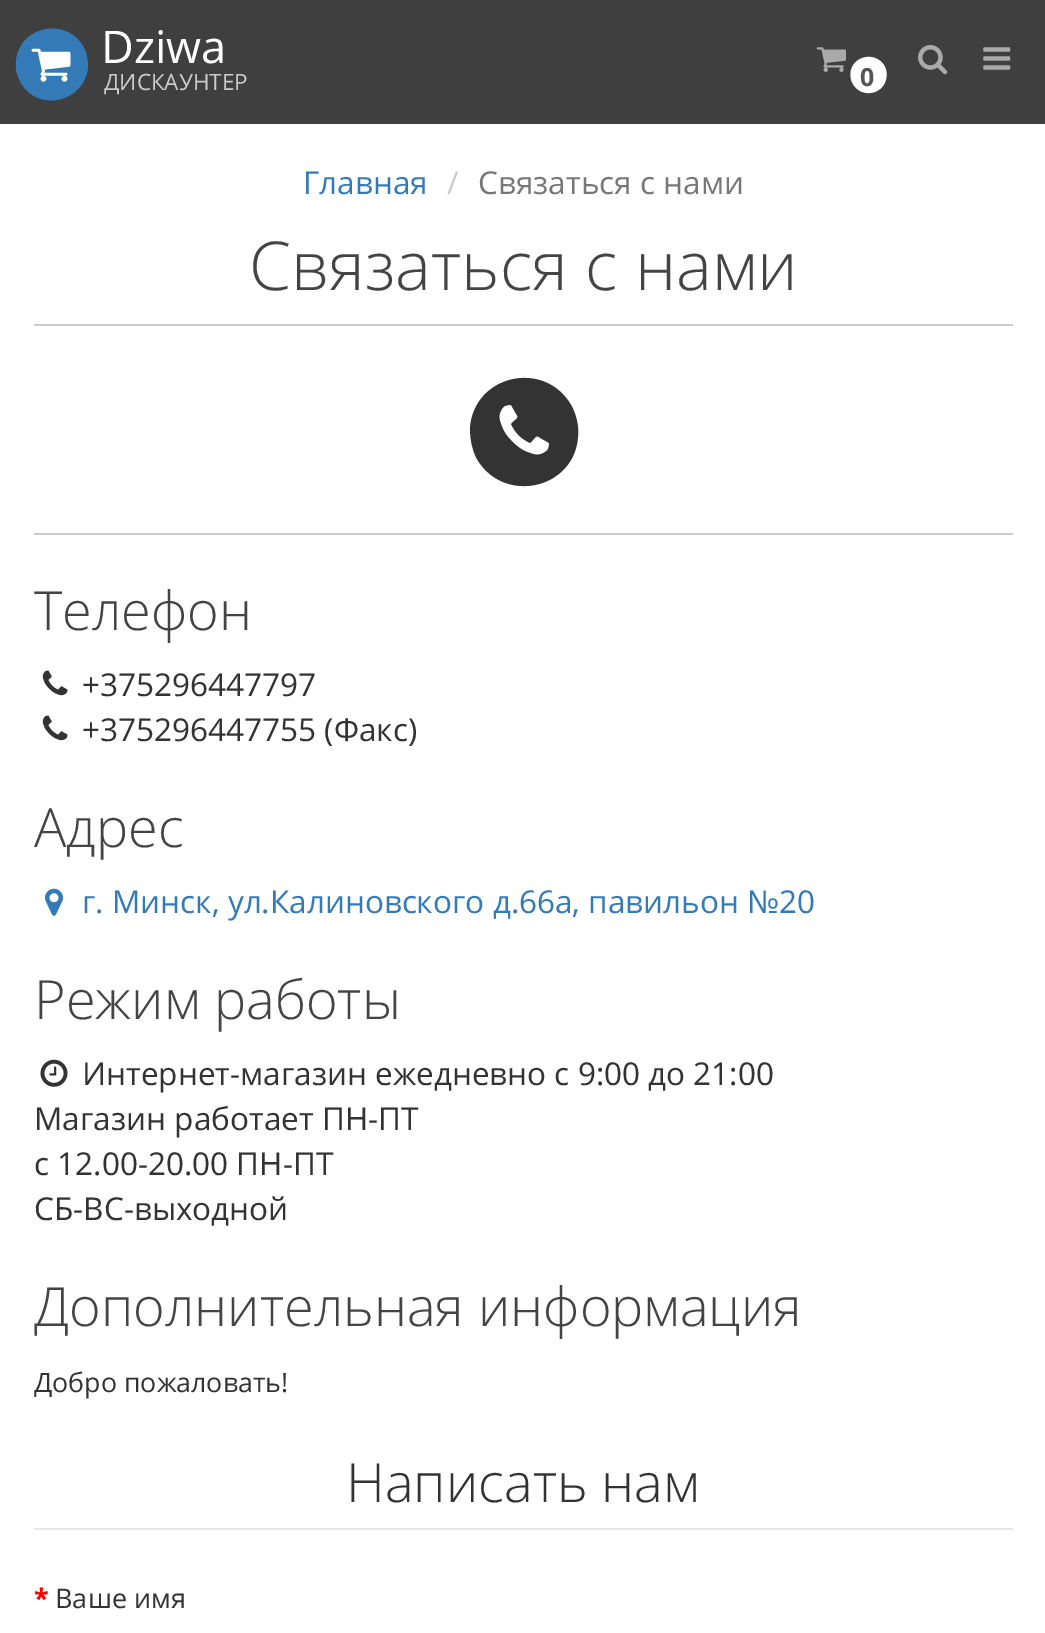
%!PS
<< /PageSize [1045 1633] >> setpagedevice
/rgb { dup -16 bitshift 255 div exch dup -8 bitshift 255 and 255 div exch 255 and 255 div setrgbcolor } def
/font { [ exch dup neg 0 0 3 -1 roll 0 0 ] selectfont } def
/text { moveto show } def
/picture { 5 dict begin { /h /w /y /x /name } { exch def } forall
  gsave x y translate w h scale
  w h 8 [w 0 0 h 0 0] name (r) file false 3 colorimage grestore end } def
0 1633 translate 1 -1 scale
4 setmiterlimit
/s1 { /OpenSans-Regular 45 font 16#FFFFFF rgb } def
/s2 { /OpenSans-Regular 22.5 font 16#CCCCCC rgb } def
/s3 { /OpenSans-Bold 25 font 16#555555 rgb } def
/s4 { /OpenSans-Regular 31.5 font 16#337AB7 rgb } def
/s5 { /OpenSans-Regular 31.5 font 16#CCCCCC rgb } def
/s6 { /OpenSans-Regular 31.5 font 16#777777 rgb } def
/s7 { /OpenSans-Light 67.5 font 16#444444 rgb } def
/s8 { /OpenSans-Light 54 font 16#444444 rgb } def
/s9 { /OpenSans-Regular 31.5 font 16#333333 rgb } def
/s10 { /OpenSans-Regular 26.75 font 16#333333 rgb } def
/s11 { /OpenSans-Light 54 font 16#333333 rgb } def
/s12 { /OpenSans-Bold 27 font 16#FF0000 rgb } def
/s13 { /OpenSans-Regular 27 font 16#333333 rgb } def
16#FFFFFF rgb
0 0 1045 1633 rectfill
16#3F3F3F rgb
0 0 1045 124 rectfill
16#337AB7 rgb
83 46 moveto 87 53 88 60 88 67 curveto 85 102 38 113 21 83 curveto 17 76 15 69 16 62 curveto 18 27 65 16 83 46 curveto closepath fill
(pic1.raw) 31 48 40 34 picture
s1
(Dziwa) 101 63 text
s2
(ДИСКАУНТЕР) 104 90 text
(pic2.raw) 918 45 30 30 picture
(pic3.raw) 983 47 28 23 picture
(pic4.raw) 816 47 30 25 picture
16#FFFFFF rgb
884.5 66 moveto 886 69 887 72.5 886.5 76 curveto 885.5 94 862 99.5 853 84 curveto 851 81 850.5 77.5 850.5 73.5 curveto 851.5 56 875.5 50.5 884.5 66 curveto closepath fill
s3
(0) 860 86 text
s4
(Главная) 303 194 text
s5
(/) 447 194 text
s6
(Связаться с нами) 478 194 text
16#CCCCCC rgb
34 324 979 2 rectfill
s7
(Связаться с нами) 249 290 text
16#333333 rgb
571 405 moveto 576 414 579 425 578 436 curveto 575 489 504 505 477 459 curveto 472 450 470 439 470 428 curveto 474 375 544 359 571 405 curveto closepath fill
(pic5.raw) 499 405 50 50 picture
16#CCCCCC rgb
34 533 979 2 rectfill
s8
(Телефон) 34 630 text
(pic6.raw) 42 670 26 26 picture
s9
(+375296447797) 82 696 text
(pic6.raw) 42 715 26 26 picture
(+375296447755 \(Факс\)) 82 741 text
s8
(Адрес) 34 847 text
(pic7.raw) 45 888 18 28 picture
s4
(г. Минск, ул.Калиновского д.66а, павильон №20) 82 913 text
s8
(Режим работы) 34 1019 text
(pic8.raw) 40 1059 28 28 picture
s9
(Интернет-магазин ежедневно с 9:00 до 21:00) 82 1085 text
(Магазин работает ПН-ПТ) 34 1130 text
(с 12.00-20.00 ПН-ПТ) 34 1175 text
(СБ-ВС-выходной) 34 1220 text
s8
(Дополнительная информация) 34 1326 text
s10
(Добро пожаловать!) 34 1392 text
16#E8E8E8 rgb
34 1528 979 2 rectfill
s11
(Написать нам) 346 1502 text
s12
(*) 34 1608 text
s13
(Ваше имя) 55 1608 text
showpage
